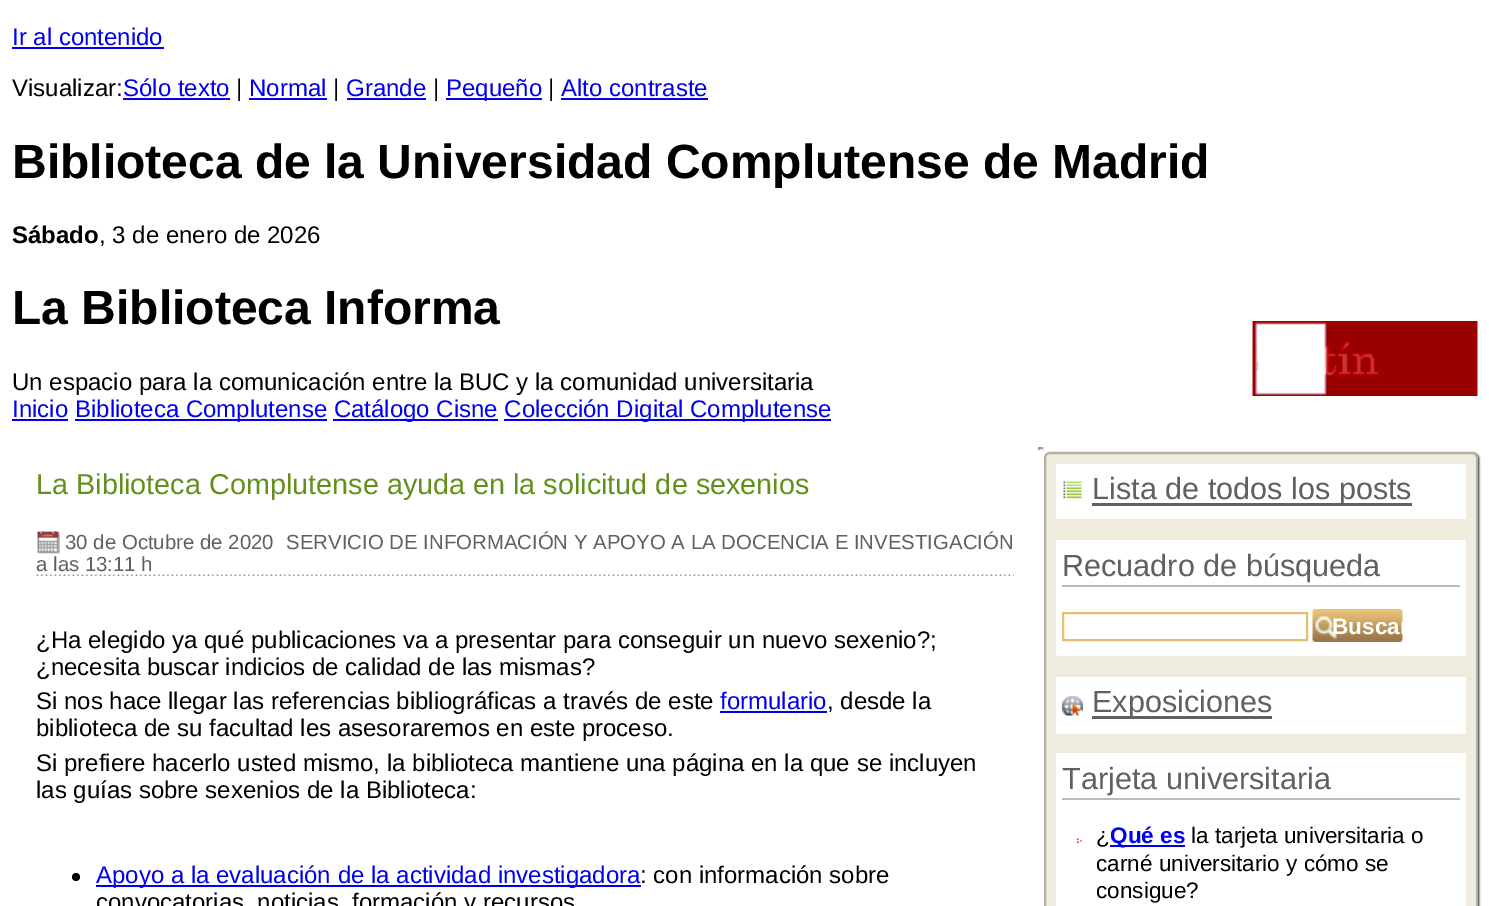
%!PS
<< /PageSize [1489 906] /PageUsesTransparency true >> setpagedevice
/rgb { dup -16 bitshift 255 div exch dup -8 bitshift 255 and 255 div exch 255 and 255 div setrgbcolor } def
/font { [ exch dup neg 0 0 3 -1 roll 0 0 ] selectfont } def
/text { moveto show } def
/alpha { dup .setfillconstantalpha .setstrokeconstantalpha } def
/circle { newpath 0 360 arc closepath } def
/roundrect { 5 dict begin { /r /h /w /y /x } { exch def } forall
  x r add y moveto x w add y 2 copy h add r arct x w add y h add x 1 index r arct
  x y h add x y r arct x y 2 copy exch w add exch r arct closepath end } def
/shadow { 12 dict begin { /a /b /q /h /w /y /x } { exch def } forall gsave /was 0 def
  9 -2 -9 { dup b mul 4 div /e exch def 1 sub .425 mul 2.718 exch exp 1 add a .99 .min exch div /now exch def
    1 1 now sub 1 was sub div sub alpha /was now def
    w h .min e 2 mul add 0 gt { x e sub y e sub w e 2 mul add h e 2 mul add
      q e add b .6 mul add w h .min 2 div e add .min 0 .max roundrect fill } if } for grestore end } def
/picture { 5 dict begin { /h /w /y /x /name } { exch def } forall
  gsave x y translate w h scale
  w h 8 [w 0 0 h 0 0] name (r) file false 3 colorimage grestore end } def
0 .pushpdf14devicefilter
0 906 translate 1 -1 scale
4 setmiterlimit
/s1 { /LiberationSans-Regular 24 font 16#0000EE rgb } def
/s2 { /LiberationSans-Regular 24 font 16#000000 rgb } def
/s3 { /LiberationSans-Bold 48 font 16#000000 rgb } def
/s4 { /LiberationSans-Bold 24 font 16#000000 rgb } def
/s5 { /LiberationSans-Regular 28.8 font 16#63901B rgb } def
/s6 { /LiberationSans-Regular 20.4 font 16#606060 rgb } def
/s7 { /LiberationSans-Regular 30.6 font 16#606060 rgb } def
/s8 { /LiberationSans-Bold 22.5 font 16#FFFFFF rgb } def
/s9 { /LiberationSans-Regular 22.5 font 16#000000 rgb } def
/s10 { /LiberationSans-Bold 22.5 font 16#0000EE rgb } def
16#FFFFFF rgb
0 0 1489 906 rectfill
s1
(Ir al contenido) 12 45 text
12 47 152 2 rectfill
s2
(Visualizar:) 12 96 text
s1
(Sólo texto) 123 96 text
123 98 107 2 rectfill
s2
(|) 236 96 text
s1
(Normal) 249 96 text
249 98 78 2 rectfill
s2
(|) 333 96 text
s1
(Grande) 346 96 text
347 98 79 2 rectfill
s2
(|) 433 96 text
16#0000EE rgb
446 98 96 2 rectfill
(Pequeño) 446 96 text
s2
(|) 548 96 text
s1
(Alto contraste) 561 96 text
561 98 147 2 rectfill
s3
(Biblioteca de la Universidad Complutense de Madrid) 12 178 text
s4
(Sábado) 12 243 text
s2
(, 3 de enero de 2026) 99 243 text
(pic1.raw) 1252 321 226 75 picture
s3
(La Biblioteca Informa) 12 324 text
s2
(Un espacio para la comunicación entre la BUC y la comunidad universitaria) 12 390 text
s1
(Inicio B) 12 417 text
12 419 56 2 rectfill
75 419 252 2 rectfill
(iblioteca Complutense C) 91 417 text
333 419 165 2 rectfill
(atálogo Cisne Colección D) 351 417 text
504 419 327 2 rectfill
(igital Complutense) 634 417 text
16#9F9F9F rgb
1038 447 6 2 rectfill
16#000000 rgb
1046 453 433 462 6 1 1 shadow
16#EEEEEE rgb
1043 447 2 3 rectfill
1038 449 6 2 rectfill
16#9F9F9F rgb
1038 447 2 3 rectfill
s5
(La Biblioteca Complutense ayuda en la solicitud de sexenios) 36 494 text
(pic2.raw) 36 574 978 2 picture
(pic3.raw) 37 531 23 23 picture
s6
(30 de Octubre de 2020) 65 549 text
(SERVICIO DE INFORMACIÓN Y APOYO A LA DOCENCIA E INVESTIGACIÓN) 286 549 text
(a las 13:11 h) 36 571 text
s2
(¿Ha elegido ya qué publicaciones va a presentar para conseguir un nuevo sexenio?;) 36 648 text
(¿necesita buscar indicios de calidad de las mismas?) 36 675 text
(Si nos hace llegar las referencias bibliográficas a través de este) 36 709 text
s1
(formulario) 720 709 text
720 711 107 2 rectfill
s2
(, desde la) 827 709 text
(biblioteca de su facultad les asesoraremos en este proceso.) 36 736 text
(Si prefiere hacerlo usted mismo, la biblioteca mantiene una página en la que se incluyen) 36 771 text
(las guías sobre sexenios de la Biblioteca:) 36 798 text
76 877 4 circle fill
16#0000EE rgb
96 885 545 2 rectfill
(Apoyo a la evaluación de la actividad investigadora) 96 883 text
s2
(: con información sobre) 640 883 text
(convocatorias, noticias, formación y recursos) 96 910 text
16#EFECDD rgb
1045 453 432 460 5 roundrect gsave fill grestore
16#B3B1A6 rgb
2 setlinewidth
stroke
16#FFFFFF rgb
1056 464 410 55 rectfill
(pic4.raw) 1063 481 19 18 picture
16#606060 rgb
1092 503 320 3 rectfill
s7
(Lista de todos los posts) 1092 499 text
16#FFFFFF rgb
1056 540 410 116 rectfill
16#BBBBBB rgb
1062 585 398 2 rectfill
s7
(Recuadro de búsqueda) 1062 576 text
16#E5BE75 rgb
1063 613 244 27 rectstroke
(pic5.raw) 1312 609 91 33 picture
gsave
1308 608 99 36 rectclip
s8
(Buscar) 1332 634 text
grestore
16#FFFFFF rgb
1056 677 410 57 rectfill
(pic6.raw) 1062 695 21 21 picture
16#606060 rgb
1092 716 180 3 rectfill
(Exposiciones) 1092 712 text
16#FFFFFF rgb
1056 753 410 153 rectfill
16#BBBBBB rgb
1062 798 398 2 rectfill
s7
(Tarjeta universitaria) 1062 789 text
(pic7.raw) 1077 838 5 5 picture
s9
(¿) 1096 843 text
16#0000EE rgb
1110 845 75 2 rectfill
s10
(Qué es) 1110 843 text
s9
(la tarjeta universitaria o) 1191 843 text
(carné universitario y cómo se) 1096 871 text
(consigue?) 1096 898 text
.poppdf14devicefilter showpage
